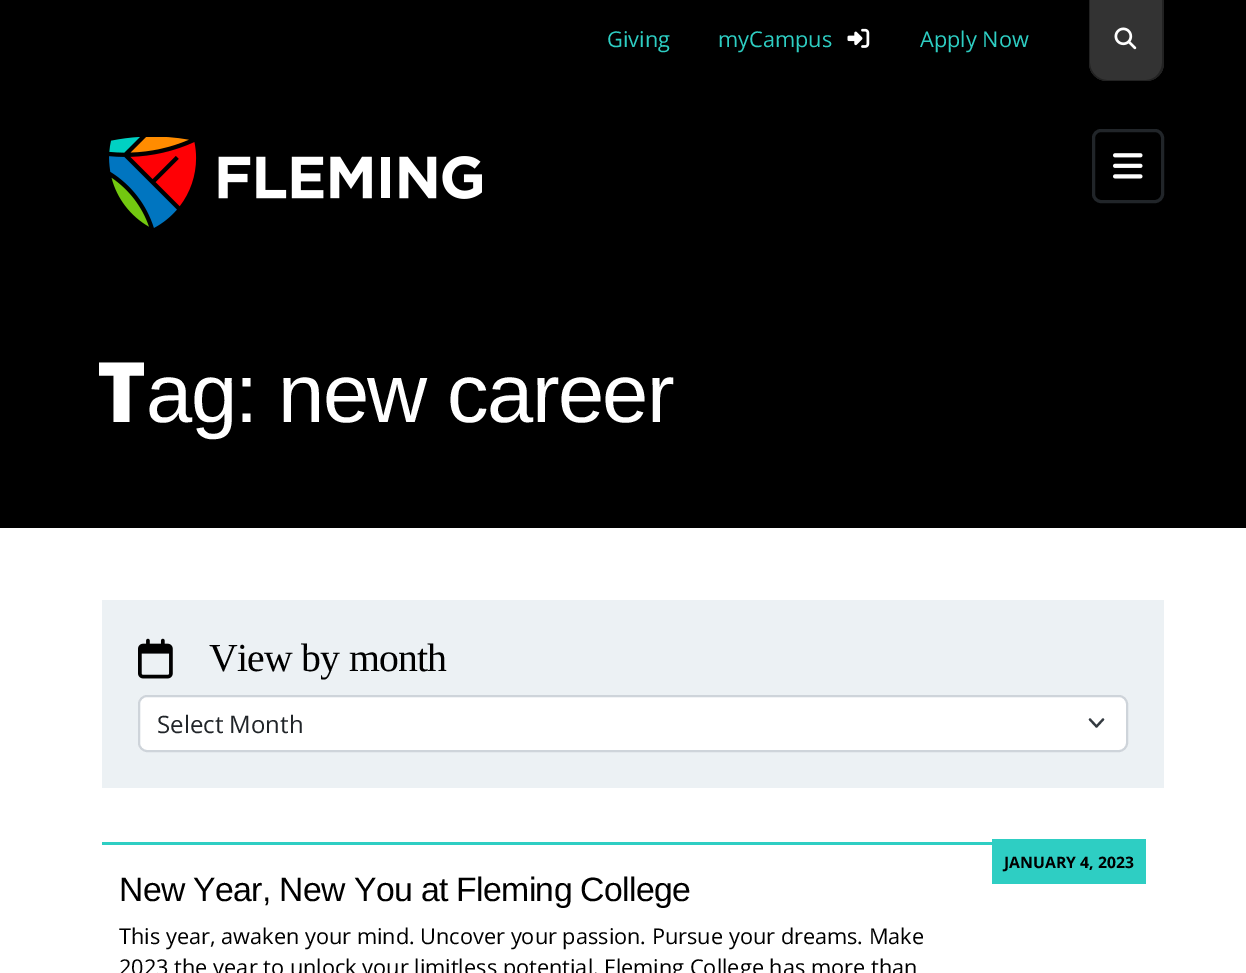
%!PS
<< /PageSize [1246 973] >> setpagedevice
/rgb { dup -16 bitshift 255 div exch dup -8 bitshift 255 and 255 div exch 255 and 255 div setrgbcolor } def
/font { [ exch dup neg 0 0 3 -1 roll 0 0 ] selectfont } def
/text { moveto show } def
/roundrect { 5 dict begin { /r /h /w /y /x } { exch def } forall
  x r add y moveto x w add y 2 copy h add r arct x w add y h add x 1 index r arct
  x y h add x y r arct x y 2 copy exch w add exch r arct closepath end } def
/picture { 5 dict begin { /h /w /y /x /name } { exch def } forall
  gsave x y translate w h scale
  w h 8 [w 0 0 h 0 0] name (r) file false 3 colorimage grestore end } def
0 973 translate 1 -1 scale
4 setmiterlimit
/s1 { /OpenSans-Regular 21.75 font 16#2ECEC3 rgb } def
/s2 { /OpenSans-Regular 24 font 16#212529 rgb } def
/s3 { /OpenSans-Bold 15.75 font 16#000000 rgb } def
/s4 { /OpenSans-Regular 21.75 font 16#000000 rgb } def
16#000000 rgb
0 0 1246 973 rectfill
s1
(Giving) 607 47 text
(myCampus) 718 47 text
(pic1.raw) 847 28 23 20 picture
(Apply Now) 920 47 text
16#333333 rgb
1089 0 moveto 1164 0 lineto 1164 63 lineto 1164 73 1156 81 1146 81 curveto 1107 81 lineto 1097 81 1089 73 1089 63 curveto closepath fill
16#222222 rgb
1089 0 moveto 1164 0 lineto 1164 63 lineto 1164 73 1156 81 1146 81 curveto 1107 81 lineto 1097 81 1089 73 1089 63 curveto closepath 1090 0 moveto 1162 0 lineto 1162 63 lineto 1162 72 1155 80 1146 80 curveto 1107 80 lineto 1098 80 1090 72 1090 63 curveto closepath eofill
(pic2.raw) 1114 27 23 23 picture
(pic3.raw) 109 137 373 91 picture
16#212529 rgb
3 setlinewidth
1093.5 130.5 69 71 7.5 roundrect stroke
(pic4.raw) 1113 153 30 26 picture
/NotoSans-Black 83.25 font
16#FFFFFF rgb
97 422 moveto -1.7 0 (T) ashow
/LiberationSans-Regular 83.25 font
146 422 moveto -1.7 0 (ag: new career) ashow
0 528 1246 445 rectfill
16#ECF1F4 rgb
102 600 1062 188 rectfill
(pic5.raw) 138 638 35 41 picture
/LiberationSerif-Regular 39.75 font
16#000000 rgb
209 671 moveto -0.75 0 (View by month) ashow
16#FFFFFF rgb
138 695 990 57 9 roundrect fill
16#343A40 rgb
2.2 setlinewidth
1 setlinecap
1 setlinejoin
1090 719.5 moveto 1096.5 726.5 lineto 1103 719.5 lineto stroke
16#CED4DA rgb
2 setlinewidth
0 setlinecap
0 setlinejoin
139 696 988 55 8 roundrect stroke
s2
(Select Month) 157 733 text
16#2ECEC3 rgb
102 842 890 3 rectfill
992 839 154 45 rectfill
s3
(JANUARY 4, 2023) 1004 868 text
/LiberationSans-Regular 33.75 font
119 901 moveto -0.65 0 (New Year, New You at Fleming College) ashow
s4
(This year, awaken your mind. Uncover your passion. Pursue your dreams. Make) 119 944 text
(2023 the year to unlock your limitless potential. Fleming College has more than) 119 975 text
showpage
